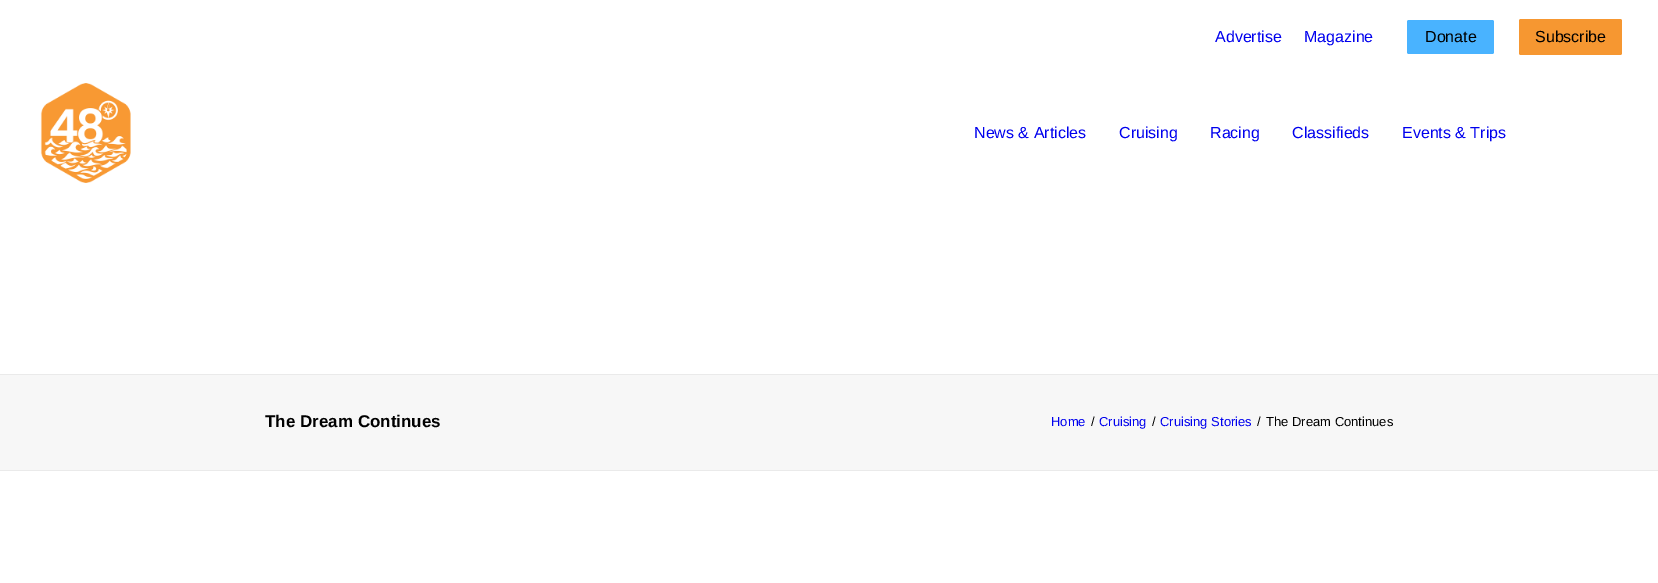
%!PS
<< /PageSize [1658 583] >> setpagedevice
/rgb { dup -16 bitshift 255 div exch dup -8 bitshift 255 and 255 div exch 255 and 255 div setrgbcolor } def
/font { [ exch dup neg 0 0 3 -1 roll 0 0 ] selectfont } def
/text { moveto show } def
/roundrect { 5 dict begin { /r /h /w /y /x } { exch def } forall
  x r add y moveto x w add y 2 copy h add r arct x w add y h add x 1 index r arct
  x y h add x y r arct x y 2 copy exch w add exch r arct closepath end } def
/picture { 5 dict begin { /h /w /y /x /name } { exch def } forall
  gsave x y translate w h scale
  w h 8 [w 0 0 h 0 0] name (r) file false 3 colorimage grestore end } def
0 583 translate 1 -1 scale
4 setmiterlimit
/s1 { /LiberationSans-Regular 16 font 16#0000EE rgb } def
/s2 { /LiberationSans-Regular 16 font 16#000000 rgb } def
/s3 { /LiberationSans-Bold 17 font 16#000000 rgb } def
/s4 { /LiberationSans-Regular 13 font 16#0000EE rgb } def
/s5 { /LiberationSans-Regular 13 font 16#000000 rgb } def
16#FFFFFF rgb
0 0 1658 583 rectfill
s1
(Advertise) 1215 42 text
(Magazine) 1304 42 text
16#49B3FF rgb
1407 20 87 34 2 roundrect fill
s2
(Donate) 1425 42 text
16#F69731 rgb
1519 19 103 36 2 roundrect fill
s2
(Subscribe) 1535 42 text
(pic1.raw) 40 83 91 100 picture
s1
(News & Articles) 974 138 text
(Cruising) 1119 138 text
(Racing) 1210 138 text
(Classifieds) 1292 138 text
(Events & Trips) 1402 138 text
16#F7F7F7 rgb
0 375 1658 95 rectfill
16#EAEAEA rgb
0 374 1658 1 rectfill
0 470 1658 1 rectfill
s3
(The Dream Continues) 265 427 text
s4
(Home) 1051 426 text
s5
(/) 1091 426 text
s4
(Cruising) 1099 426 text
s5
(/) 1152 426 text
s4
(Cruising Stories) 1160 426 text
s5
(/) 1257 426 text
(The Dream Continues) 1266 426 text
showpage
